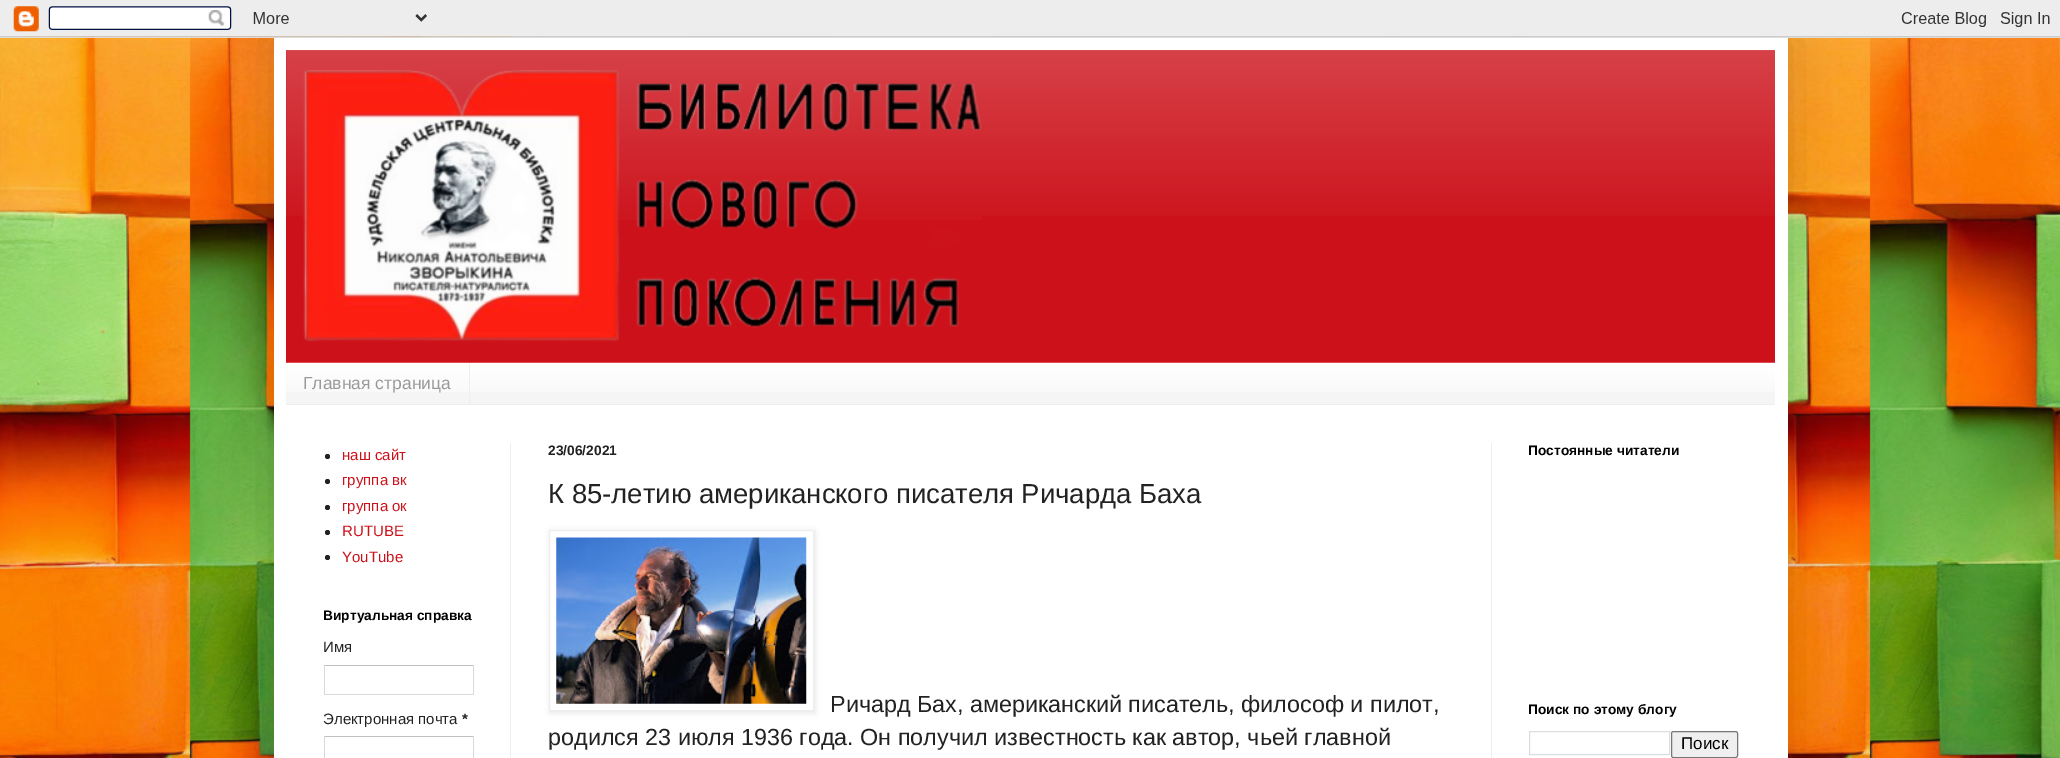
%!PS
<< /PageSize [2060 758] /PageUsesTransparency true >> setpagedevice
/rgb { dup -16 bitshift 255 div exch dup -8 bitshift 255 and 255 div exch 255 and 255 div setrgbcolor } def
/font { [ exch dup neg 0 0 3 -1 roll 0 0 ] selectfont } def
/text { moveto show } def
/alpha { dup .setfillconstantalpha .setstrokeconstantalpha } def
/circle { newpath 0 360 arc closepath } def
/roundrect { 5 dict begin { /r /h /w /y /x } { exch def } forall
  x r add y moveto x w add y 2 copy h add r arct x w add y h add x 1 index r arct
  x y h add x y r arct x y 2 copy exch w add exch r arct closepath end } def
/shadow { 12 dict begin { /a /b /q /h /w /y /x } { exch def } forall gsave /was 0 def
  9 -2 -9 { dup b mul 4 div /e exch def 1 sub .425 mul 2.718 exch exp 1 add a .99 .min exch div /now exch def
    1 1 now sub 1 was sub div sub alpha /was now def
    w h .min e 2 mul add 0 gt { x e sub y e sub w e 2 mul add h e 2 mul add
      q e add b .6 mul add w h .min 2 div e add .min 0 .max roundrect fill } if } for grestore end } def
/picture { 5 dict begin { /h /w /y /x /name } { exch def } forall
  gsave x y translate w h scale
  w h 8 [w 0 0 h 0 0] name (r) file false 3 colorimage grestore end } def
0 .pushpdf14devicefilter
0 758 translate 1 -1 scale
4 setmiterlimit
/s1 { /LiberationSans-Regular 17.5 font 16#999999 rgb } def
/s2 { /LiberationSans-Regular 15 font 16#CC111A rgb } def
/s3 { /LiberationSans-Bold 13.75 font 16#000000 rgb } def
/s4 { /LiberationSans-Regular 15 font 16#222222 rgb } def
/s5 { /LiberationSans-Bold 15 font 16#222222 rgb } def
/s6 { /LiberationSans-Bold 13.75 font 16#222222 rgb } def
/s7 { /LiberationSans-Regular 27.5 font 16#222222 rgb } def
/s8 { /LiberationSans-Regular 23.35 font 16#222222 rgb } def
/s9 { /LiberationSans-Regular 17 font 16#000000 rgb } def
16#FFFFFF rgb
0 0 2060 758 rectfill
(pic1.raw) 0 36 2060 722 picture
16#000000 rgb
274 38 1514 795 0 25 0.15 shadow
(pic2.raw) 0 0 2060 38 picture
16#FFFFFF rgb
274 38 1514 720 rectfill
16#CC111A rgb
286 50 1489 313 rectfill
(pic3.raw) 286 50 1489 166 picture
(pic4.raw) 303 70 679 272 picture
16#F5F5F5 rgb
286 363 1489 41 rectfill
(pic5.raw) 286 362 1489 30 picture
16#EEEEEE rgb
286 404 1489 1 rectfill
469 363 1 41 rectfill
s1
(Главная страница) 303 389 text
16#EEEEEE rgb
510 443 1 315 rectfill
1491 443 1 315 rectfill
16#222222 rgb
327.5 456.5 2.5 circle fill
s2
(наш сайт) 342 460 text
16#222222 rgb
327.5 481.5 2.5 circle fill
s2
(группа вк) 342 485 text
16#222222 rgb
327.5 507.5 2.5 circle fill
s2
(группа ок) 342 511 text
16#222222 rgb
327.5 532.5 2.5 circle fill
s2
(RUTUBE) 342 536 text
16#222222 rgb
327.5 557.5 2.5 circle fill
s2
(YouTube) 342 562 text
s3
(Виртуальная справка) 323 620 text
s4
(Имя) 323 652 text
16#C0C0C0 rgb
324 665 150 1 rectfill
16#D9D9D9 rgb
473 665 1 30 rectfill
324 694 150 1 rectfill
324 665 1 30 rectfill
s4
(Электронная почта) 323 724 text
s5
(*) 462 724 text
16#C0C0C0 rgb
324 736 150 1 rectfill
16#D9D9D9 rgb
473 736 1 22 rectfill
324 736 1 22 rectfill
s6
(23/06/2021) 548 455 text
s7
(К 85-летию американского писателя Ричарда Баха) 548 503 text
16#000000 rgb
550 531 265 182 0 3 0.1 shadow
16#FFFFFF rgb
549.5 530.5 moveto 813.5 530.5 lineto 813.5 710.5 lineto 549.5 710.5 lineto closepath gsave fill grestore
16#EEEEEE rgb
stroke
(pic6.raw) 556 537 251 167 picture
s8
(Ричард Бах, американский писатель, философ и пилот,) 830 712 text
(родился 23 июля 1936 года. Он получил известность как автор, чьей главной) 548 745 text
s3
(Постоянные читатели) 1528 455 text
(Поиск по этому блогу) 1528 714 text
16#DDDDDD rgb
1529.5 731.5 140 23 rectstroke
16#EFEFEF rgb
1671.5 731.5 66 26 2 roundrect gsave fill grestore
16#767676 rgb
stroke
s9
(Поиск) 1681 749 text
.poppdf14devicefilter showpage
